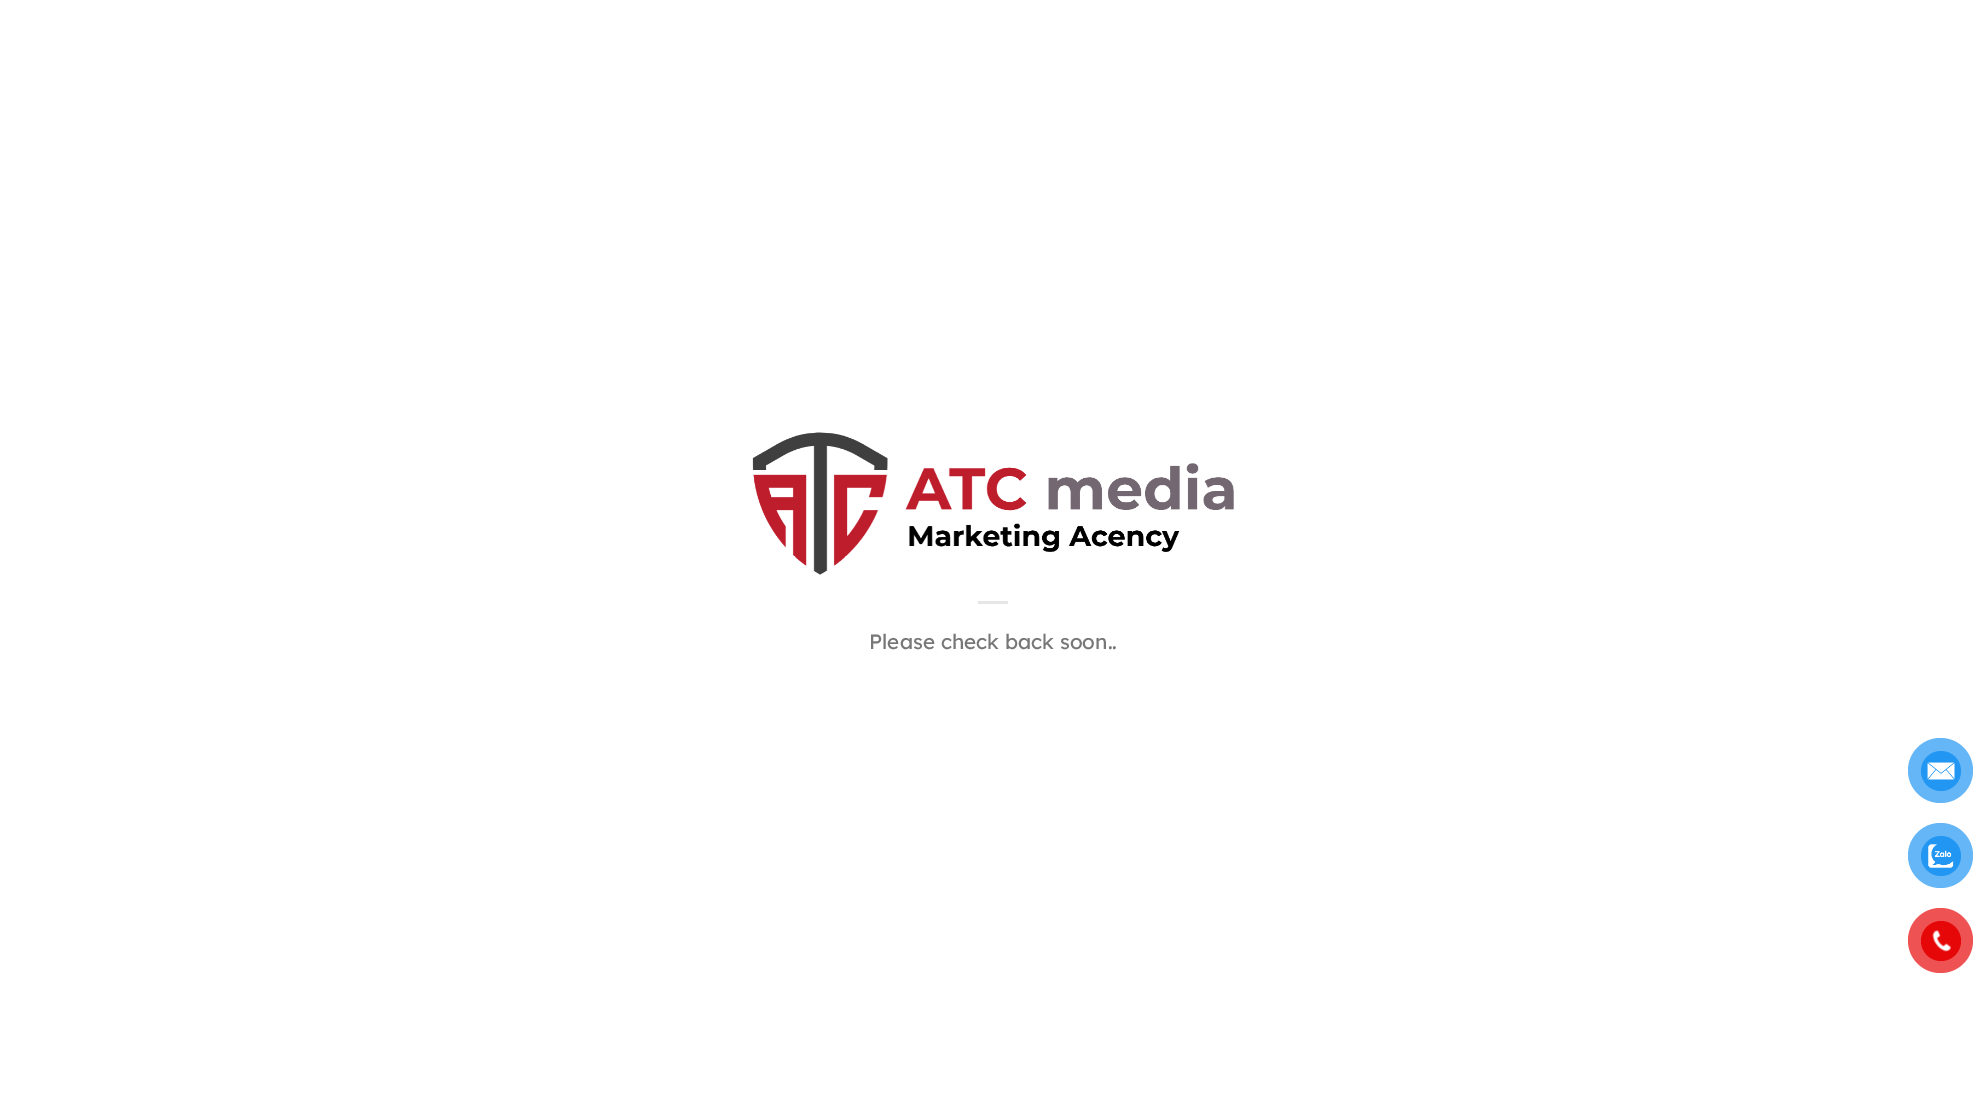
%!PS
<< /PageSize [1986 1096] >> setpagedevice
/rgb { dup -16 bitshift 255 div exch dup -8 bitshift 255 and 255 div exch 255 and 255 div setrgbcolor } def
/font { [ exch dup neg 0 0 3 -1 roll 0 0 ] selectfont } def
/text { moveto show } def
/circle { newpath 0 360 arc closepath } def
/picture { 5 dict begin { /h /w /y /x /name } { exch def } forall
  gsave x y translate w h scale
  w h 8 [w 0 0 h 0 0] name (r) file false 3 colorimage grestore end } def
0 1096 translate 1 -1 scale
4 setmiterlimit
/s1 { /Lexend-Regular 20.75 font 16#777777 rgb } def
16#FFFFFF rgb
0 0 1986 1096 rectfill
(pic1.raw) 752 432 482 143 picture
16#E6E6E6 rgb
978 601 30 3 rectfill
s1
(Please check back soon..) 869 649 text
16#64B6F7 rgb
1940.5 770.5 32.5 circle fill
16#2196F3 rgb
1941 771 20 circle fill
(pic2.raw) 1927 762 28 18 picture
16#64B6F7 rgb
1940.5 855.5 32.5 circle fill
16#2196F3 rgb
1941 856 20 circle fill
(pic3.raw) 1928 844 26 24 picture
16#EE5252 rgb
1940.5 940.5 32.5 circle fill
16#E60808 rgb
1941 941 20 circle fill
(pic4.raw) 1932 930 19 22 picture
showpage
